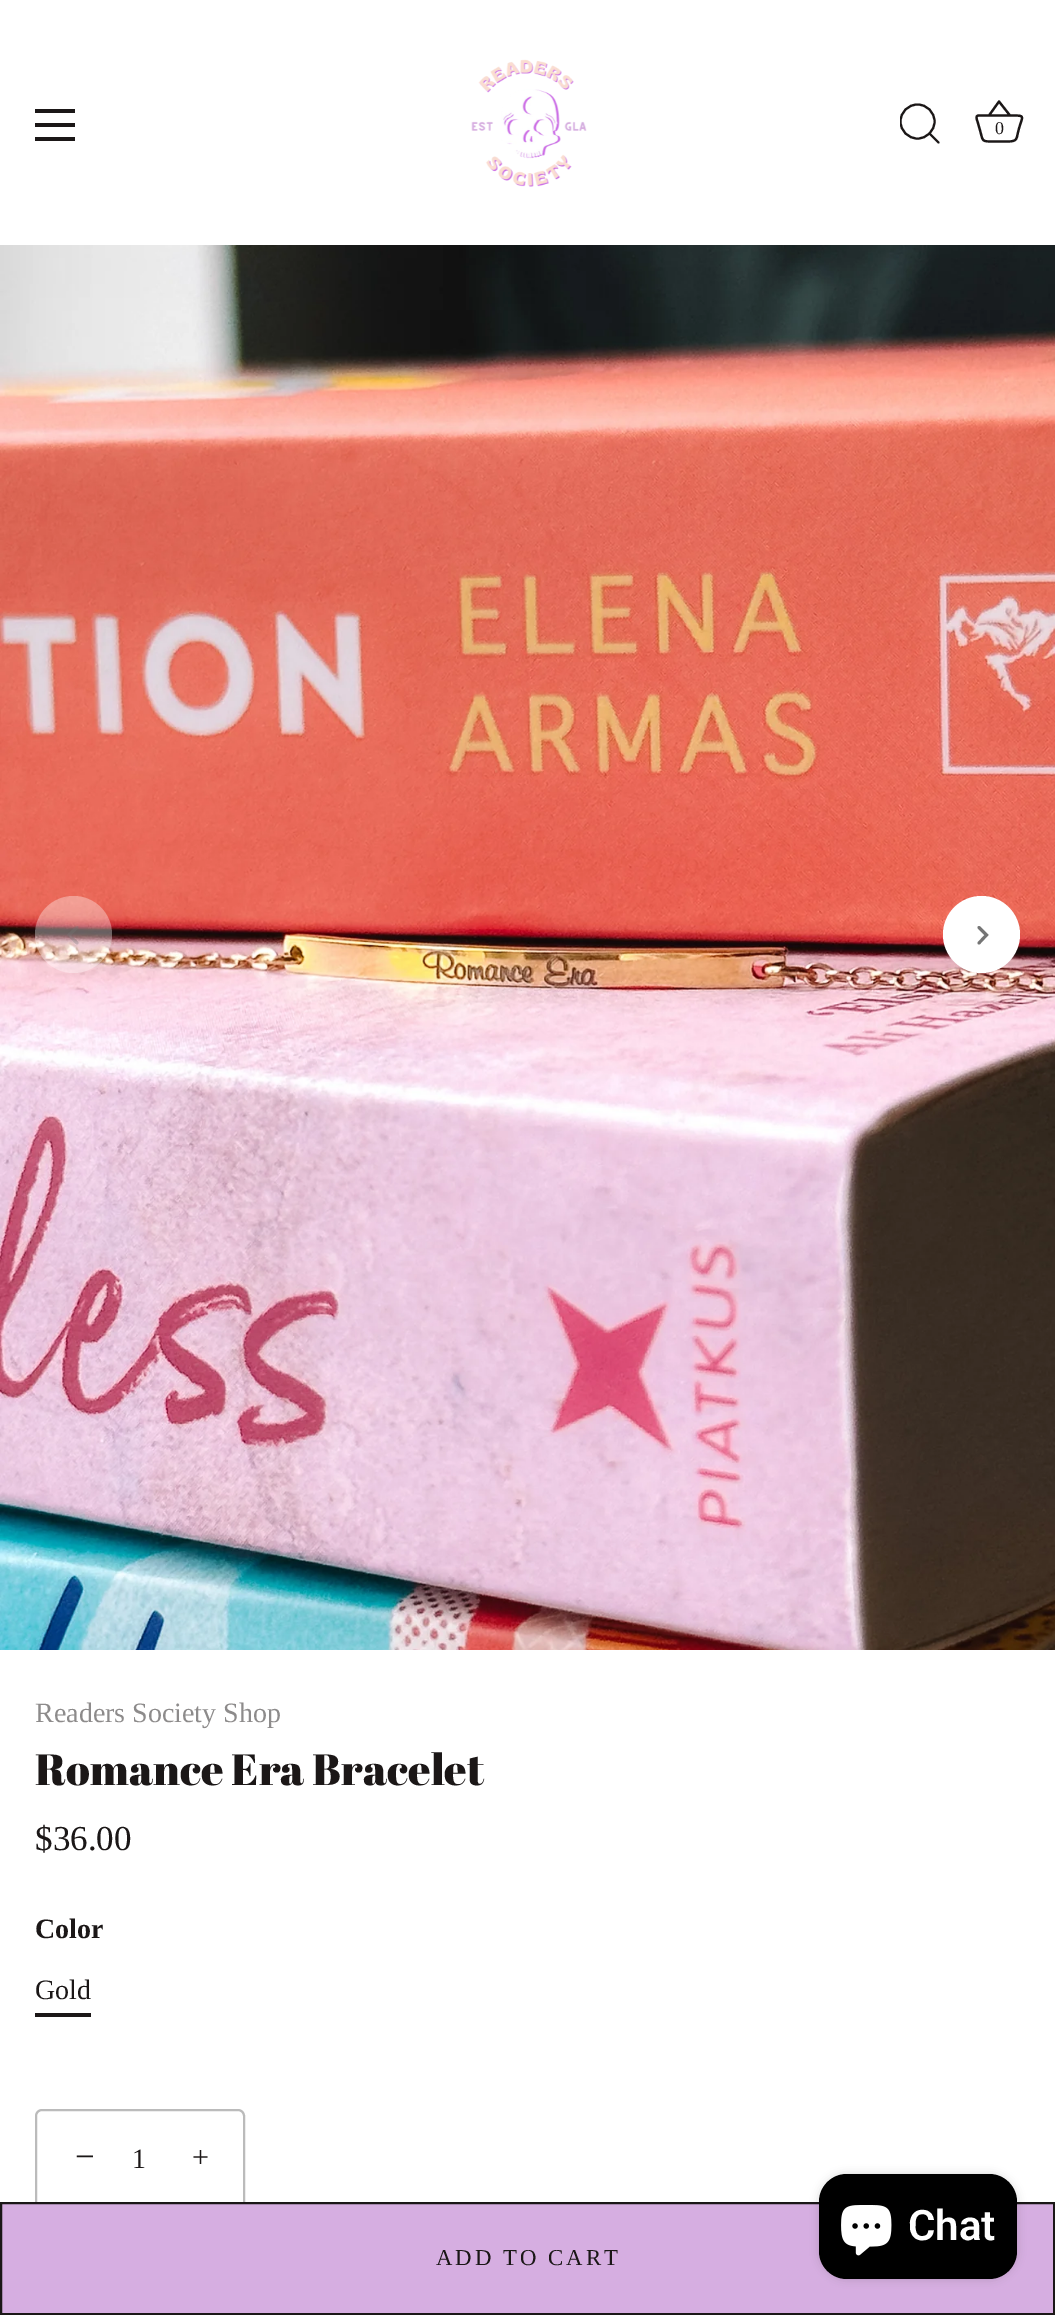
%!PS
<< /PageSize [1055 2315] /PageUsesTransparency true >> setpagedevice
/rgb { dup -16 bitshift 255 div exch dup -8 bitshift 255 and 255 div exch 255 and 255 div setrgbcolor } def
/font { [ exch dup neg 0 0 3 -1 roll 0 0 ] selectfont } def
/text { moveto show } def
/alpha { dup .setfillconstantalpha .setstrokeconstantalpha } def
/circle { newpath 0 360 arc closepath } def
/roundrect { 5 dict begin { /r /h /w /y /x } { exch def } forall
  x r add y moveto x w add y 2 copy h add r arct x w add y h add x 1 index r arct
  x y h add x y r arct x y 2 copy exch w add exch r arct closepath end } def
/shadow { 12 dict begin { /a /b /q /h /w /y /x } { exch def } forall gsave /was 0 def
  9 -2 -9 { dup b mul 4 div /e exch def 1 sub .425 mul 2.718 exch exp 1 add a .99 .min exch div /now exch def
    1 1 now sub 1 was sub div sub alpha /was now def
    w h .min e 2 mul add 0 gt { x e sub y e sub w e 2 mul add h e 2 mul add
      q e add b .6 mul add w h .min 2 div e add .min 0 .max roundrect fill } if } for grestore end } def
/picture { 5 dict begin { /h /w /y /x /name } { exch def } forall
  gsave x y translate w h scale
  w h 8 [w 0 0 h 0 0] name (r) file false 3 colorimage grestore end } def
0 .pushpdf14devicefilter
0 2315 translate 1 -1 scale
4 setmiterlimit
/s1 { /LiberationSerif-Regular 18 font 16#1B1717 rgb } def
/s2 { /LiberationSerif-Regular 28 font 16#8D8B8B rgb } def
/s3 { /AbrilFatface-Regular 43.75 font 16#1B1717 rgb } def
/s4 { /LiberationSerif-Regular 35 font 16#1B1717 rgb } def
/s5 { /LiberationSerif-Bold 28 font 16#1B1717 rgb } def
/s6 { /LiberationSerif-Regular 28 font 16#1B1717 rgb } def
/s7 { /LiberationSerif-Regular 30 font 16#1B1717 rgb } def
/s8 { /Roboto-SemiBold 42 font 16#FFFFFF rgb } def
16#FFFFFF rgb
0 0 1055 2315 rectfill
16#1B1717 rgb
35 109 40 4 rectfill
35 123 40 4 rectfill
35 137 40 4 rectfill
(pic1.raw) 471 59 116 128 picture
gsave
900 103 42 42 rectclip
2.1 setlinewidth
917.5 121.5 17 circle stroke
grestore
2.1 setlinewidth
1 setlinecap
1 setlinejoin
938.5 142.5 moveto 929.5 133.5 lineto stroke
2.2 setlinewidth
0 setlinecap
978.5 115.5 moveto 975 115.5 977 120 977.5 121.5 curveto 979.5 128.5 lineto 983.5 142 980.5 141.5 995 141.5 curveto 1007.5 141.5 lineto 1018.5 141.5 1016 138.5 1019 128.5 curveto 1022.5 116 1025.5 115.5 1013 115.5 curveto 978.5 115.5 lineto 989 115.5 moveto 999 101.5 lineto 1010 115.5 lineto stroke
s1
(0) 995 134 text
(pic2.raw) 0 245 1055 1405 picture
0.35 alpha
16#FFFFFF rgb
73.5 934.5 38.5 circle fill
16#757575 rgb
2.9 setlinewidth
1 setlinecap
0 setlinejoin
77 927.5 moveto 69 935 lineto 77 943 lineto stroke
1 alpha
16#FFFFFF rgb
981.5 934.5 38.5 circle fill
16#757575 rgb
979 943 moveto 986.5 935 lineto 979 927.5 lineto stroke
s2
(Readers Society Shop) 35 1722 text
s3
(Romance Era Bracelet) 35 1785 text
s4
($36.00) 35 1850 text
s5
(Color) 35 1938 text
s6
(Gold) 35 1999 text
35 2013 56 4 rectfill
16#BBBBBB rgb
2 setlinewidth
0 setlinecap
36 2110 208 99 6 roundrect stroke
s4
(−) 75 2168 text
/LiberationSerif-Regular 28 font
132 2168 moveto 1 0 (1) ashow
s7
(+) 192 2167 text
16#D6AEE1 rgb
1 2203 moveto 1054 2203 lineto 1054 2314 lineto 1 2314 lineto closepath gsave fill grestore
16#1B1717 rgb
stroke
/LiberationSerif-Regular 22.75 font
436 2265 moveto 3 0 (ADD TO CART) ashow
16#000000 rgb
819 2174 198 105 28 4.5 0.15 shadow
819 2174 198 105 28 roundrect fill
(pic3.raw) 841 2205 51 51 picture
s8
(Chat) 908 2240 text
.poppdf14devicefilter showpage
